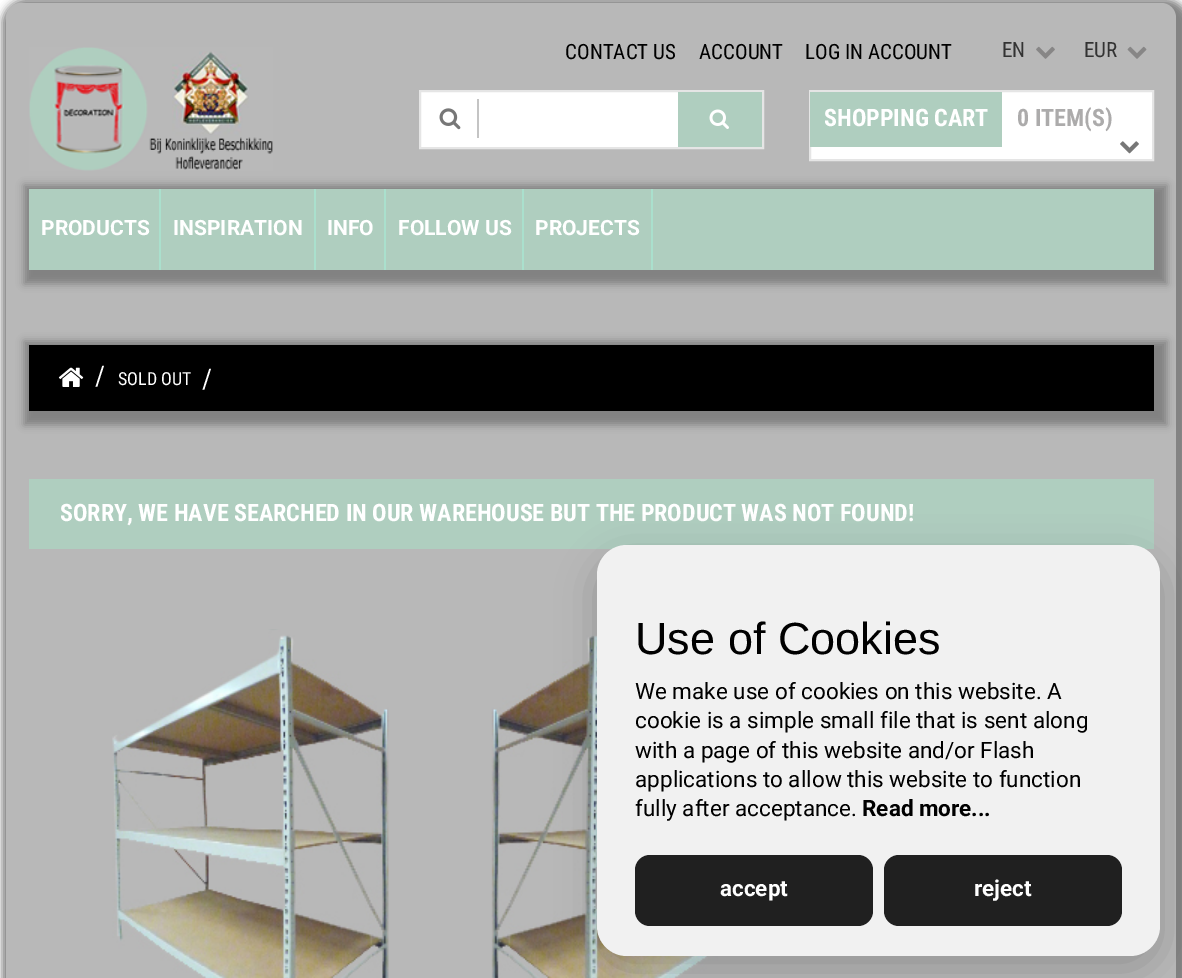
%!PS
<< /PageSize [1182 978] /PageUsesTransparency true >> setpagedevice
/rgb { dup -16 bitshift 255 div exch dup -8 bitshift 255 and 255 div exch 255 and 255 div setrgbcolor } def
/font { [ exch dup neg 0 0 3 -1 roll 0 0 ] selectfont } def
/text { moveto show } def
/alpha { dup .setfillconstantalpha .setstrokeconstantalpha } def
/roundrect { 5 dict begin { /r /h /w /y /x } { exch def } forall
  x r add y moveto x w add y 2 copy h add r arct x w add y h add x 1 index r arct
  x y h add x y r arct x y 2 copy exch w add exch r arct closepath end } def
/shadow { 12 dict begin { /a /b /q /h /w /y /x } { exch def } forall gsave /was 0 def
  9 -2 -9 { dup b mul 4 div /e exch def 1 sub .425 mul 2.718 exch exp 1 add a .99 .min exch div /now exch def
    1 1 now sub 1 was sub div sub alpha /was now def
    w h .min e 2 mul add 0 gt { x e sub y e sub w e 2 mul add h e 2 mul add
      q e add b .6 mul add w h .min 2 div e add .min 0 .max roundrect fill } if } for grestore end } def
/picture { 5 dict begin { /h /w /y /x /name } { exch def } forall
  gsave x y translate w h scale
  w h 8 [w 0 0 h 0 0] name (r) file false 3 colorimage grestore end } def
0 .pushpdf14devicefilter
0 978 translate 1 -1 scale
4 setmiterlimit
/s1 { /RobotoCondensed-Regular 21 font 16#000000 rgb } def
/s2 { /RobotoCondensed-Regular 21 font 16#333333 rgb } def
/s3 { /RobotoCondensed-Bold 24 font 16#FFFFFF rgb } def
/s4 { /RobotoCondensed-Bold 24 font 16#ACABAB rgb } def
/s5 { /Roboto-Bold 21 font 16#FFFFFF rgb } def
/s6 { /RobotoCondensed-Regular 27 font 16#FFFFFF rgb } def
/s7 { /RobotoCondensed-Regular 18 font 16#FFFFFF rgb } def
/s8 { /LiberationSans-Regular 45 font 16#000000 rgb } def
/s9 { /Roboto-Regular 22.5 font 16#000000 rgb } def
/s10 { /Roboto-Bold 22.5 font 16#000000 rgb } def
/s11 { /Roboto-Bold 22.5 font 16#FFFFFF rgb } def
16#FFFFFF rgb
0 0 1182 978 rectfill
16#808080 rgb
2 -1 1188 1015 24 4 1 shadow
16#B8B8B8 rgb
21 3 moveto 1161 3 lineto 1169.5 3 1176 9.5 1176 18 curveto 1176 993 lineto 6 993 lineto 6 18 lineto 6 9.5 12.5 3 21 3 curveto closepath fill
s1
(CONTACT US) 565 59 text
(ACCOUNT) 699 59 text
(LOG IN ACCOUNT) 805 59 text
s2
(EN) 1002 57 text
(pic1.raw) 1036 46 19 13 picture
(EUR) 1084 57 text
(pic2.raw) 1127 46 20 13 picture
(pic3.raw) 29 47 244 124 picture
16#FFFFFF rgb
421 92 257 55 rectfill
16#E5E5E5 rgb
2 setlinewidth
420 91 343 57 rectstroke
16#C4C4C4 rgb
477 99 2 39 rectfill
(pic4.raw) 439 108 22 22 picture
16#AFCEBF rgb
678 92 84 55 rectfill
(pic5.raw) 709 109 20 20 picture
16#FFFFFF rgb
810 91 moveto 1153 91 lineto 1153 160 lineto 810 160 lineto closepath gsave fill grestore
16#E5E5E5 rgb
stroke
16#AFCEBF rgb
810 92 192 55 rectfill
s3
(SHOPPING CART) 824 126 text
s4
(0 ITEM\(S\)) 1017 126 text
(pic6.raw) 1120 141 19 13 picture
16#808080 rgb
24 185 1143 99 0 4 1 shadow
16#AFCEBF rgb
29 189 1125 81 rectfill
16#AAE0CD rgb
159 189 2 81 rectfill
s5
(PRODUCTS) 41 235 text
16#AAE0CD rgb
314 189 2 81 rectfill
s5
(INSPIRATION) 173 235 text
16#AAE0CD rgb
384 189 2 81 rectfill
s5
(INFO) 327 235 text
16#AAE0CD rgb
522 189 2 81 rectfill
s5
(FOLLOW US) 398 235 text
16#AAE0CD rgb
651 189 2 81 rectfill
s5
(PROJECTS) 535 235 text
16#808080 rgb
24 341 1143 84 0 4 1 shadow
16#000000 rgb
29 345 1125 66 rectfill
(pic7.raw) 58 367 26 20 picture
s6
(/) 95 385 text
s7
(SOLD OUT) 118 385 text
s6
(/) 202 388 text
16#AFCEBF rgb
29 479 1125 70 rectfill
s3
(SORRY, WE HAVE SEARCHED IN OUR WAREHOUSE BUT THE PRODUCT WAS NOT FOUND!) 60 521 text
(pic8.raw) 112 629 277 349 picture
(pic9.raw) 491 629 278 349 picture
16#020203 rgb
597 558 563 411 30 19.5 0.2 shadow
16#F1F1F1 rgb
597 545 563 411 30 roundrect fill
s8
(Use of Cookies) 635 654 text
s9
(We make use of cookies on this website. A) 635 699 text
(cookie is a simple small file that is sent along) 635 728 text
(with a page of this website and/or Flash) 635 758 text
(applications to allow this website to function) 635 787 text
(fully after acceptance.) 635 816 text
s10
(Read more...) 862 816 text
16#202020 rgb
635 855 238 71 15 roundrect fill
s11
(accept) 720 896 text
16#202020 rgb
884 855 238 71 15 roundrect fill
s11
(reject) 974 896 text
.poppdf14devicefilter showpage
